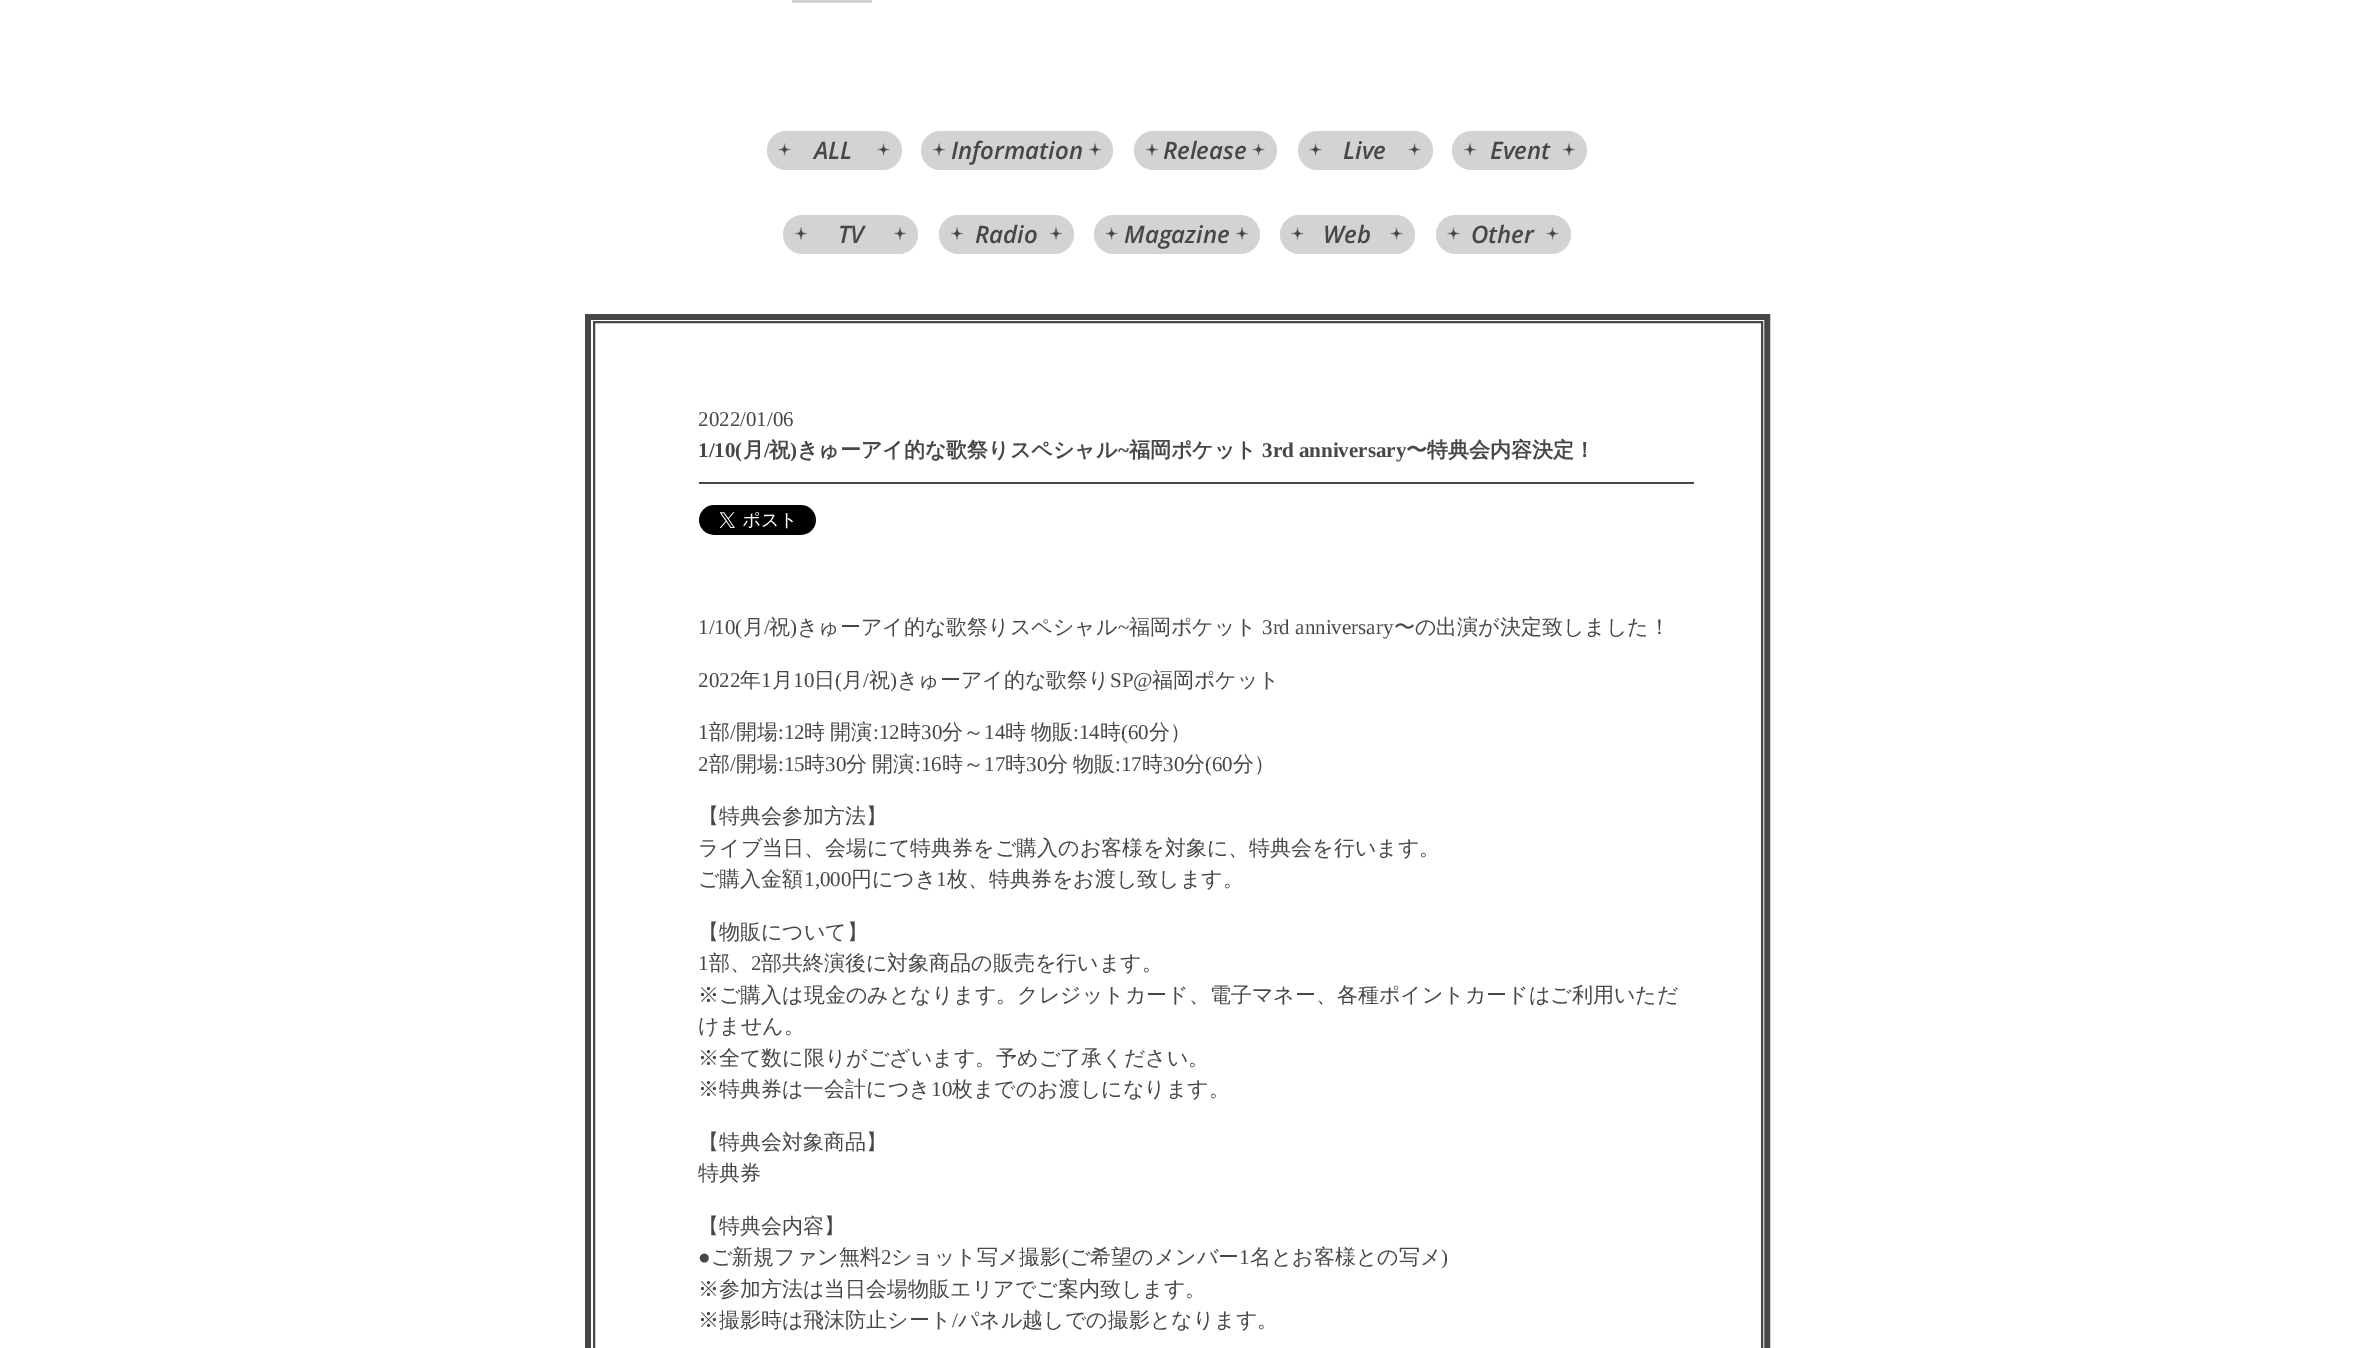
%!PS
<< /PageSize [2353 1348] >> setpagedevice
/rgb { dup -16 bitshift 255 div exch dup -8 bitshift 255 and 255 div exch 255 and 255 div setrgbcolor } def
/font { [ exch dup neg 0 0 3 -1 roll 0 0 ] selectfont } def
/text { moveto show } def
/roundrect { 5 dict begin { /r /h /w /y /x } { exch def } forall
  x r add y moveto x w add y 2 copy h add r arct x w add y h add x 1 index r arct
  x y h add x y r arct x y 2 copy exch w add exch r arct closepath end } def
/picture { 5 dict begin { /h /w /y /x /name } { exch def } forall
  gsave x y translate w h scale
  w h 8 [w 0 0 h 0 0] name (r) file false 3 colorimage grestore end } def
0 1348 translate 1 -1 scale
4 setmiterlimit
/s1 { /OpenSans-SemiBoldItalic 24 font 16#474747 rgb } def
/s2 { /LiberationSerif-Regular 21 font 16#474747 rgb } def
/s3 { /LiberationSerif-Bold 21 font 16#474747 rgb } def
/s4 { /WenQuanYiZenHei-Bold 21 font 16#474747 rgb } def
/s5 { /WenQuanYiZenHei-Medium 21 font 16#474747 rgb } def
16#FFFFFF rgb
0 0 2353 1348 rectfill
16#D3D3D3 rgb
792 0 80 3 rectfill
767 131 135 39 19.5 roundrect fill
(pic1.raw) 778 143 13 13 picture
s1
(ALL) 814 159 text
(pic1.raw) 877 143 13 13 picture
16#D3D3D3 rgb
921 131 192 39 19.5 roundrect fill
(pic2.raw) 933 143 12 13 picture
s1
(Information) 951 159 text
(pic3.raw) 1089 143 12 13 picture
16#D3D3D3 rgb
1134 131 143 39 19.5 roundrect fill
(pic3.raw) 1146 143 12 13 picture
s1
(Release) 1163 159 text
(pic1.raw) 1252 143 13 13 picture
16#D3D3D3 rgb
1298 131 135 39 19.5 roundrect fill
(pic4.raw) 1309 143 13 13 picture
s1
(Live) 1343 159 text
(pic4.raw) 1408 143 13 13 picture
16#D3D3D3 rgb
1452 131 135 39 19.5 roundrect fill
(pic3.raw) 1464 143 12 13 picture
s1
(Event) 1490 159 text
(pic2.raw) 1563 143 12 13 picture
16#D3D3D3 rgb
783 215 135 39 19.5 roundrect fill
(pic2.raw) 795 227 12 13 picture
s1
(TV) 838 243 text
(pic2.raw) 894 227 12 13 picture
16#D3D3D3 rgb
939 215 135 39 19.5 roundrect fill
(pic2.raw) 951 227 12 13 picture
s1
(Radio) 975 243 text
(pic3.raw) 1050 227 12 13 picture
16#D3D3D3 rgb
1094 215 166 39 19.5 roundrect fill
(pic1.raw) 1105 227 13 13 picture
s1
(Magazine) 1124 243 text
(pic3.raw) 1236 227 12 13 picture
16#D3D3D3 rgb
1280 215 135 39 19.5 roundrect fill
(pic4.raw) 1291 227 13 13 picture
s1
(Web) 1323 243 text
(pic4.raw) 1390 227 13 13 picture
16#D3D3D3 rgb
1436 215 135 39 19.5 roundrect fill
(pic4.raw) 1447 227 13 13 picture
s1
(Other) 1471 243 text
(pic1.raw) 1546 227 13 13 picture
8 setlinewidth
589 318 1177 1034 rectstroke
16#FFFFFF rgb
2 setlinewidth
592 321 1171 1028 rectstroke
16#474747 rgb
594 322 1168 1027 rectstroke
s2
(2022/01/06) 698 426 text
699 482 995 2 rectfill
s3
(1/10\() 698 457 text
s4
(月) 743 457 text
s3
(/) 764 457 text
s4
(祝) 769 457 text
s3
(\)) 790 457 text
s4
(きゅーアイ的な歌祭りスペシャル) 797 457 text
s3
(~) 1118 457 text
s4
(福岡ポケット) 1129 457 text
s3
(3rd anniversary) 1262 457 text
s4
(〜特典会内容決定！) 1406 457 text
(pic5.raw) 699 505 117 30 picture
s2
(1/10\() 698 634 text
s5
(月) 743 634 text
s2
(/) 764 634 text
s5
(祝) 769 634 text
s2
(\)) 790 634 text
s5
(きゅーアイ的な歌祭りスペシャル) 797 634 text
s2
(~) 1118 634 text
s5
(福岡ポケット) 1129 634 text
s2
(3rd anniversary) 1262 634 text
s5
(〜の出演が決定致しました！) 1394 634 text
s2
(2022) 698 687 text
s5
(年) 740 687 text
s2
(1) 761 687 text
s5
(月) 772 687 text
s2
(10) 793 687 text
s5
(日) 814 687 text
s2
(\() 835 687 text
s5
(月) 842 687 text
s2
(/) 863 687 text
s5
(祝) 869 687 text
s2
(\)) 890 687 text
s5
(きゅーアイ的な歌祭り) 897 687 text
s2
(SP@) 1110 687 text
s5
(福岡ポケット) 1152 687 text
s2
(1) 698 739 text
s5
(部) 709 739 text
s2
(/) 730 739 text
s5
(開場) 736 739 text
s2
(:12) 778 739 text
/WenQuanYiZenHei-Medium 21 font
804 739 moveto -1 0 32 (時 開演) widthshow
s2
(:12) 873 739 text
s5
(時) 900 739 text
s2
(30) 921 739 text
s5
(分～) 942 739 text
s2
(14) 984 739 text
/WenQuanYiZenHei-Medium 21 font
1005 739 moveto -1 0 32 (時 物販) widthshow
s2
(:14) 1073 739 text
s5
(時) 1100 739 text
s2
(\(60) 1121 739 text
s5
(分）) 1149 739 text
s2
(2) 698 771 text
s5
(部) 709 771 text
s2
(/) 730 771 text
s5
(開場) 736 771 text
s2
(:15) 778 771 text
s5
(時) 804 771 text
s2
(30) 825 771 text
/WenQuanYiZenHei-Medium 21 font
846 771 moveto -1 0 32 (分 開演) widthshow
s2
(:16) 915 771 text
s5
(時～) 942 771 text
s2
(17) 984 771 text
s5
(時) 1005 771 text
s2
(30) 1026 771 text
/WenQuanYiZenHei-Medium 21 font
1047 771 moveto -1 0 32 (分 物販) widthshow
s2
(:17) 1115 771 text
s5
(時) 1142 771 text
s2
(30) 1163 771 text
s5
(分) 1184 771 text
s2
(\(60) 1205 771 text
s5
(分）) 1233 771 text
(【特典会参加方法】) 698 823 text
(ライブ当日、会場にて特典券をご購入のお客様を対象に、特典会を行います。) 698 855 text
(ご購入金額) 698 886 text
s2
(1,000) 804 886 text
s5
(円につき) 851 886 text
s2
(1) 936 886 text
s5
(枚、特典券をお渡し致します。) 947 886 text
(【物販について】) 698 939 text
s2
(1) 698 970 text
s5
(部、) 709 970 text
s2
(2) 751 970 text
s5
(部共終演後に対象商品の販売を行います。) 761 970 text
(※ご購入は現金のみとなります。クレジットカード、電子マネー、各種ポイントカードはご利用いただ) 698 1002 text
(けません。) 698 1033 text
(※全て数に限りがございます。予めご了承ください。) 698 1065 text
(※特典券は一会計につき) 698 1096 text
s2
(10) 931 1096 text
s5
(枚までのお渡しになります。) 952 1096 text
(【特典会対象商品】) 698 1149 text
(特典券) 698 1180 text
(【特典会内容】) 698 1233 text
s2
(●) 698 1264 text
s5
(ご新規ファン無料) 711 1264 text
s2
(2) 881 1264 text
s5
(ショット写メ撮影) 891 1264 text
s2
(\() 1062 1264 text
s5
(ご希望のメンバー) 1069 1264 text
s2
(1) 1239 1264 text
s5
(名とお客様との写メ) 1250 1264 text
s2
(\)) 1441 1264 text
s5
(※参加方法は当日会場物販エリアでご案内致します。) 698 1296 text
(※撮影時は飛沫防止シート) 698 1327 text
s2
(/) 952 1327 text
s5
(パネル越しでの撮影となります。) 958 1327 text
showpage
